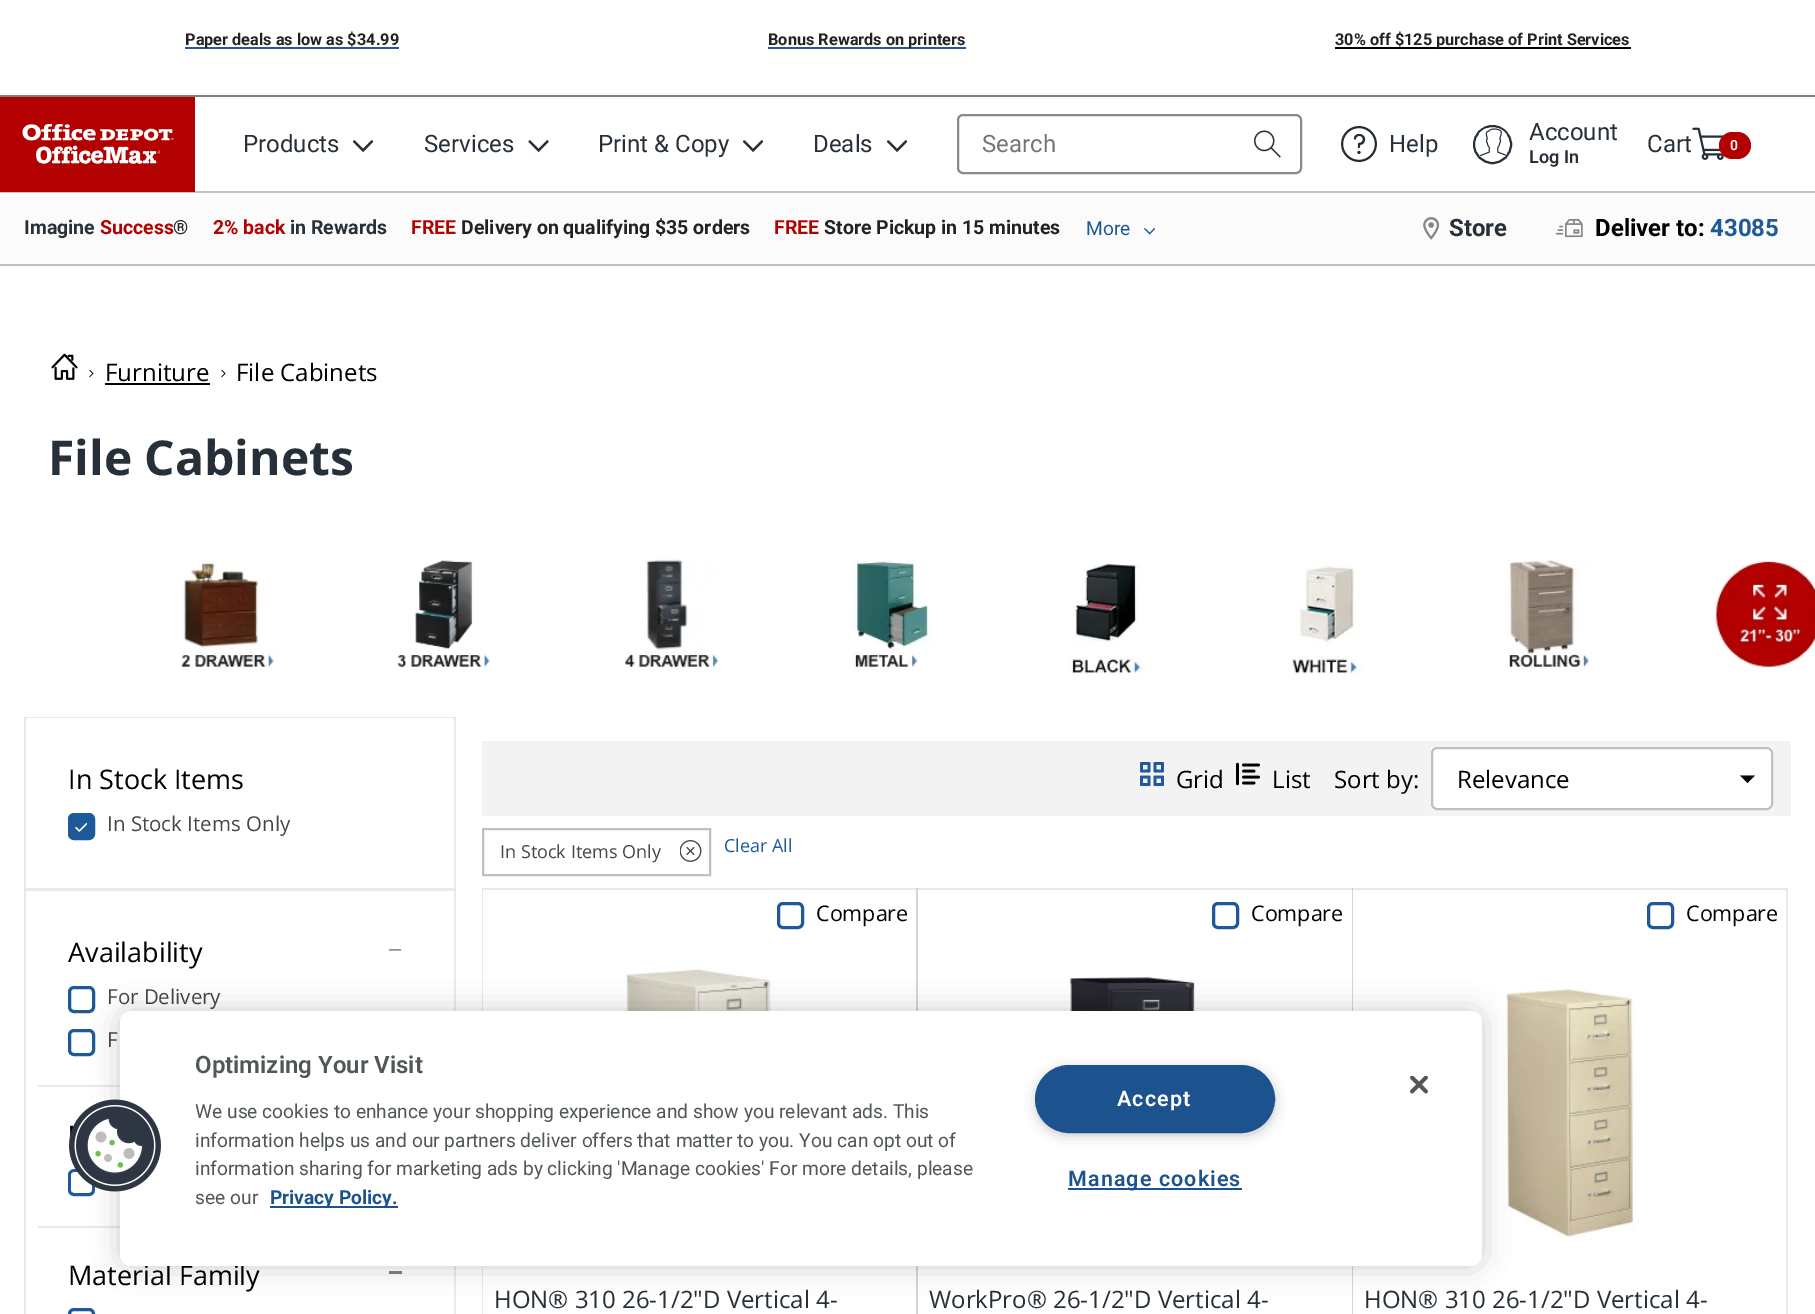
%!PS
<< /PageSize [1815 1314] /PageUsesTransparency true >> setpagedevice
/rgb { dup -16 bitshift 255 div exch dup -8 bitshift 255 and 255 div exch 255 and 255 div setrgbcolor } def
/font { [ exch dup neg 0 0 3 -1 roll 0 0 ] selectfont } def
/text { moveto show } def
/alpha { dup .setfillconstantalpha .setstrokeconstantalpha } def
/circle { newpath 0 360 arc closepath } def
/roundrect { 5 dict begin { /r /h /w /y /x } { exch def } forall
  x r add y moveto x w add y 2 copy h add r arct x w add y h add x 1 index r arct
  x y h add x y r arct x y 2 copy exch w add exch r arct closepath end } def
/shadow { 12 dict begin { /a /b /q /h /w /y /x } { exch def } forall gsave /was 0 def
  9 -2 -9 { dup b mul 4 div /e exch def 1 sub .425 mul 2.718 exch exp 1 add a .99 .min exch div /now exch def
    1 1 now sub 1 was sub div sub alpha /was now def
    w h .min e 2 mul add 0 gt { x e sub y e sub w e 2 mul add h e 2 mul add
      q e add b .6 mul add w h .min 2 div e add .min 0 .max roundrect fill } if } for grestore end } def
/picture { 5 dict begin { /h /w /y /x /name } { exch def } forall
  gsave x y translate w h scale
  w h 8 [w 0 0 h 0 0] name (r) file false 3 colorimage grestore end } def
0 .pushpdf14devicefilter
0 1314 translate 1 -1 scale
4 setmiterlimit
/s1 { /Roboto-Bold 16.3 font 16#222222 rgb } def
/s2 { /Roboto-Regular 24 font 16#273039 rgb } def
/s3 { /Roboto-Regular 24 font 16#757575 rgb } def
/s4 { /Roboto-SemiBold 18 font 16#273039 rgb } def
/s5 { /Roboto-SemiBold 14 font 16#FFFFFF rgb } def
/s6 { /Roboto-Bold 19.5 font 16#273039 rgb } def
/s7 { /Roboto-Bold 19.5 font 16#B30000 rgb } def
/s8 { /Roboto-Bold 19.5 font 16#222222 rgb } def
/s9 { /Roboto-Regular 19.2 font 16#1E5A99 rgb } def
/s10 { /Roboto-Bold 24 font 16#273039 rgb } def
/s11 { /Roboto-Bold 24 font 16#000000 rgb } def
/s12 { /Roboto-Bold 24 font 16#1E5A99 rgb } def
/s13 { /OpenSans-Regular 24 font 16#000000 rgb } def
/s14 { /OpenSans-Bold 48 font 16#273039 rgb } def
/s15 { /OpenSans-Regular 27 font 16#000000 rgb } def
/s16 { /OpenSans-Regular 20.5 font 16#464646 rgb } def
/s17 { /OpenSans-Regular 18 font 16#464646 rgb } def
/s18 { /OpenSans-Regular 18 font 16#1E5A99 rgb } def
/s19 { /OpenSans-Regular 21.5 font 16#000000 rgb } def
/s20 { /OpenSans-Regular 24 font 16#273039 rgb } def
/s21 { /Roboto-SemiBold 24 font 16#515758 rgb } def
/s22 { /Roboto-Regular 19.2 font 16#515758 rgb } def
/s23 { /Roboto-Bold 19.2 font 16#1C528D rgb } def
16#FFFFFF rgb
0 0 1815 1314 rectfill
16#808080 rgb
0 95 1815 2 rectfill
16#1E5A99 rgb
185 47 214 2 rectfill
s1
(Paper deals as low as $34.99) 185 45 text
16#1E5A99 rgb
768 47 198 2 rectfill
s1
(Bonus Rewards on printers) 768 45 text
16#000000 rgb
1335 47 296 2 rectfill
s1
(30% off $125 purchase of Print Services) 1335 45 text
16#BEC0C3 rgb
0 191 1815 2 rectfill
16#B30000 rgb
0 97 195 95 rectfill
(pic1.raw) 22 124 152 40 picture
s2
(Products) 243 152 text
(pic2.raw) 353 140 21 13 picture
(Services) 424 152 text
(pic3.raw) 528 140 21 13 picture
(Print & Copy) 598 152 text
(pic2.raw) 743 140 21 13 picture
(Deals) 813 152 text
(pic2.raw) 887 140 21 13 picture
16#858C8E rgb
2 setlinewidth
958 115 343 58 5 roundrect stroke
s3
(Search) 982 152 text
(pic4.raw) 1254 130 27 28 picture
(pic5.raw) 1341 126 36 36 picture
s2
(Help) 1389 152 text
1492.5 144.5 18.5 circle stroke
(pic6.raw) 1479 128 28 29 picture
(Account) 1529 140 text
s4
(Log In) 1529 163 text
s2
(Cart) 1647 152 text
(pic7.raw) 1692 127 32 33 picture
16#B30000 rgb
1719 132 32 27 13.5 roundrect fill
s5
(0) 1730 150 text
16#FBFBFB rgb
0 193 1815 71 rectfill
16#BEC0C3 rgb
0 264 1815 2 rectfill
s6
(Imagine) 24 234 text
s7
(Success) 100 234 text
s8
(®) 173 234 text
s7
(2% back) 213 234 text
s6
(in Rewards) 290 234 text
s7
(FREE) 411 234 text
s8
(Delivery on qualifying $35 orders) 461 234 text
s7
(FREE) 774 234 text
s8
(Store Pickup in 15 minutes) 824 234 text
s9
(More) 1086 235 text
(pic8.raw) 1144 228 11 7 picture
(pic9.raw) 1423 217 17 23 picture
s10
(Store) 1449 236 text
(pic10.raw) 1555 219 28 19 picture
s11
(Deliver to:) 1595 236 text
s12
(43085) 1710 236 text
(pic11.raw) 51 353 27 27 picture
(pic12.raw) 89 369 5 9 picture
s13
(Furniture) 105 381 text
105 383 105 2 rectfill
(pic12.raw) 221 369 5 9 picture
(File Cabinets) 236 381 text
s14
(File Cabinets) 48 475 text
(pic13.raw) 181 560 93 110 picture
(pic14.raw) 397 560 93 108 picture
(pic15.raw) 623 559 97 111 picture
(pic16.raw) 853 559 79 111 picture
(pic17.raw) 1069 564 74 110 picture
(pic18.raw) 1290 564 73 110 picture
(pic19.raw) 1506 559 85 111 picture
(pic20.raw) 1715 561 100 108 picture
16#E8E9E9 rgb
24 717 moveto 456 717 lineto 454 718 lineto 26 718 lineto closepath fill
0.1 alpha
16#273039 rgb
456 717 moveto 456 890 lineto 454 888 lineto 454 718 lineto closepath fill
456 890 moveto 24 890 lineto 26 888 lineto 454 888 lineto closepath fill
16#1A2026 rgb
24 890 moveto 24 717 lineto 26 718 lineto 26 888 lineto closepath fill
1 alpha
s15
(In Stock Items) 68 789 text
16#1E5A99 rgb
69.5 814.5 24 24 4.5 roundrect gsave fill grestore
3 setlinewidth
stroke
(pic21.raw) 75 822 12 10 picture
s16
(In Stock Items Only) 107 831 text
16#E8E9E9 rgb
24 890 moveto 456 890 lineto 454 891 lineto 26 891 lineto closepath fill
0.1 alpha
16#273039 rgb
456 890 moveto 456 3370 lineto 454 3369 lineto 454 891 lineto closepath fill
16#1A2026 rgb
24 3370 moveto 24 890 lineto 26 891 lineto 26 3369 lineto closepath fill
1 alpha
16#E9EAEB rgb
38 1085 82 2 rectfill
s15
(Availability) 68 962 text
(pic22.raw) 389 949 13 2 picture
16#1E5A99 rgb
69.5 987.5 24 24 4.5 roundrect stroke
s16
(For Delivery) 107 1004 text
16#1E5A99 rgb
69.5 1030.5 24 24 4.5 roundrect stroke
s16
(F) 107 1047 text
16#E9EAEB rgb
38 1226 82 2 rectfill
16#1E5A99 rgb
69.5 1170.5 24 24 4.5 roundrect stroke
s15
(Material Family) 68 1285 text
16#808080 rgb
389 1271 13 3 rectfill
16#1E5A99 rgb
69.5 1309.5 24 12 4.5 roundrect stroke
16#F3F3F3 rgb
482 741 1309 75 rectfill
(pic23.raw) 1140 762 24 24 picture
s13
(Grid) 1176 788 text
(pic24.raw) 1236 762 24 24 picture
(List) 1272 788 text
(Sort by:) 1334 788 text
16#FFFFFF rgb
1431 747 342 63 rectfill
16#BEC0C3 rgb
2 setlinewidth
1432 748 340 61 5 roundrect stroke
s13
(Relevance) 1457 788 text
1747.5 783 moveto 1740 775.5 lineto 1755 775.5 lineto closepath fill
16#BEC0C3 rgb
483 829 227 46 rectstroke
s17
(In Stock Items Only) 500 858 text
(pic25.raw) 680 840 22 22 picture
s18
(Clear All) 724 852 text
16#E8E9E9 rgb
482 888 moveto 918 888 lineto 916 890 lineto 483 890 lineto closepath fill
0.1 alpha
16#273039 rgb
918 888 moveto 918 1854 lineto 916 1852 lineto 916 890 lineto closepath fill
16#1A2026 rgb
482 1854 moveto 482 888 lineto 483 890 lineto 483 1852 lineto closepath fill
1 alpha
16#1E5A99 rgb
3 setlinewidth
778.5 903.5 24 24 4.5 roundrect stroke
s19
(Compare) 816 921 text
(pic26.raw) 624 967 154 44 picture
s20
(HON® 310 26-1/2"D Vertical 4-) 494 1308 text
0.1 alpha
16#1A2026 rgb
916 888 moveto 1353 888 lineto 1352 890 lineto 918 890 lineto closepath fill
16#273039 rgb
1353 888 moveto 1353 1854 lineto 1352 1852 lineto 1352 890 lineto closepath fill
16#1A2026 rgb
916 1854 moveto 916 888 lineto 918 890 lineto 918 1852 lineto closepath fill
1 alpha
16#1E5A99 rgb
1213.5 903.5 24 24 4.5 roundrect stroke
s19
(Compare) 1251 921 text
(pic27.raw) 1070 977 125 34 picture
s20
(WorkPro® 26-1/2"D Vertical 4-) 929 1308 text
0.1 alpha
16#1A2026 rgb
1352 888 moveto 1788 888 lineto 1786 890 lineto 1353 890 lineto closepath fill
16#273039 rgb
1788 888 moveto 1788 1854 lineto 1786 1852 lineto 1786 890 lineto closepath fill
16#1A2026 rgb
1352 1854 moveto 1352 888 lineto 1353 890 lineto 1353 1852 lineto closepath fill
1 alpha
16#1E5A99 rgb
1648.5 903.5 24 24 4.5 roundrect stroke
s19
(Compare) 1686 921 text
(pic28.raw) 1505 989 131 248 picture
s20
(HON® 310 26-1/2"D Vertical 4-) 1364 1308 text
16#000000 rgb
120 1011 1362 255 11 13.5 0.2 shadow
16#FFFFFF rgb
120 1011 1362 255 11 roundrect fill
(pic29.raw) 69 1099 92 93 picture
s21
(Optimizing Your Visit) 195 1073 text
s22
(We use cookies to enhance your shopping experience and show you relevant ads. This) 195 1118 text
(information helps us and our partners deliver offers that matter to you. You can opt out of) 195 1147 text
(information sharing for marketing ads by clicking 'Manage cookies' For more details, please) 195 1175 text
(see our) 195 1204 text
16#1C528D rgb
270 1206 128 2 rectfill
s23
(Privacy Policy.) 270 1204 text
16#999999 rgb
1040 1073 231 58 29 7.5 1 shadow
16#1C528D rgb
1036 1066 238 66 33 roundrect gsave fill grestore
2 setlinewidth
stroke
/Roboto-SemiBold 21.5 font
16#FFFFFF rgb
1117 1106 moveto 1.1 0 (Accept) ashow
16#1C528D rgb
1068 1188 174 2 rectfill
1068 1186 moveto 1.1 0 (Manage cookies) ashow
(pic30.raw) 1410 1076 18 18 picture
.poppdf14devicefilter showpage
